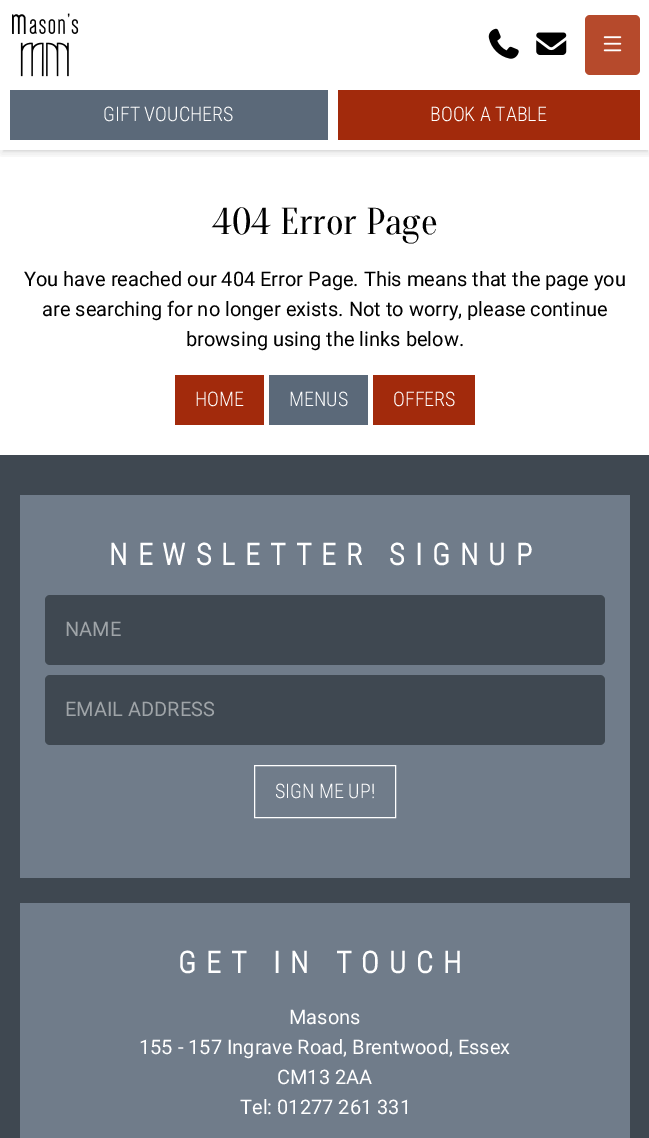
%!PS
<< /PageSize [649 1138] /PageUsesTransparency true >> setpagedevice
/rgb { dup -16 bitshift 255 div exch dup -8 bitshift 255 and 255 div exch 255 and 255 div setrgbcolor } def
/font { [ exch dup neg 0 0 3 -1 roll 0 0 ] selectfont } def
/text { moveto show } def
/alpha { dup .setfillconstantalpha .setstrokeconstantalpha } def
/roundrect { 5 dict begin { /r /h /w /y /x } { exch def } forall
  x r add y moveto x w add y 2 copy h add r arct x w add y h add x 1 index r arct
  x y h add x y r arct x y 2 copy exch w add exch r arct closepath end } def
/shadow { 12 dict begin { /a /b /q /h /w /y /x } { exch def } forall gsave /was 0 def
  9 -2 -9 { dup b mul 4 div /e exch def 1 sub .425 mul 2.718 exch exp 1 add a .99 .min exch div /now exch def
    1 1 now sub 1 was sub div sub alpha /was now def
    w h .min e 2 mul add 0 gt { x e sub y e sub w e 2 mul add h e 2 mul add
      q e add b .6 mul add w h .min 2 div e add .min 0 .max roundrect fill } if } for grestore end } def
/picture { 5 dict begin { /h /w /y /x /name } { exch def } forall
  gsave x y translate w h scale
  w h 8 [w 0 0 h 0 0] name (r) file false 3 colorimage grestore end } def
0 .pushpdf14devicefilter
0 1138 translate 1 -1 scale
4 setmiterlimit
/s1 { /RobotoCondensed-Light 20 font 16#FFFFFF rgb } def
/s2 { /Oranienbaum-Regular 37.5 font 16#000000 rgb } def
/s3 { /Roboto-Regular 20 font 16#000000 rgb } def
/s4 { /Roboto-Regular 20 font 16#9FA4A8 rgb } def
/s5 { /Roboto-Regular 20 font 16#FFFFFF rgb } def
16#FFFFFF rgb
0 0 649 1138 rectfill
gsave
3 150 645 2 rectclip
16#000000 rgb
3 5 645 145 0 2.5 0.1 shadow
grestore
gsave
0 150 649 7 rectclip
16#000000 rgb
1 6 648 148 0 4 0.1 shadow
grestore
(pic1.raw) 12 13 67 64 picture
(pic2.raw) 488 28 31 31 picture
(pic3.raw) 536 32 31 23 picture
16#B64A2C rgb
585 15 55 60 5 roundrect fill
(pic4.raw) 603 36 19 16 picture
16#5B6979 rgb
10 90 318 50 rectfill
s1
(GIFT VOUCHERS) 103 121 text
16#A22A0C rgb
338 90 302 50 rectfill
s1
(BOOK A TABLE) 430 121 text
s2
(404 Error Page) 212 234 text
s3
(You have reached our 404 Error Page. This means that the page you) 24 286 text
(are searching for no longer exists. Not to worry, please continue) 42 316 text
(browsing using the links below.) 186 346 text
16#A22A0C rgb
175 375 89 50 rectfill
s1
(HOME) 195 406 text
16#5B6979 rgb
269 375 99 50 rectfill
s1
(MENUS) 289 406 text
16#A22A0C rgb
373 375 102 50 rectfill
s1
(OFFERS) 393 406 text
16#3F4851 rgb
0 455 649 683 rectfill
16#707C8A rgb
20 495 610 383 rectfill
/RobotoCondensed-Bold 30 font
16#FFFFFF rgb
109 565 moveto 10 0 (NEWSLETTER SIGNUP) ashow
16#3F4851 rgb
45 595 560 70 5 roundrect fill
s4
(NAME) 65 636 text
16#3F4851 rgb
45 675 560 70 5 roundrect fill
s4
(EMAIL ADDRESS) 65 716 text
16#FFFFFF rgb
254.5 765.5 141 52 rectstroke
s1
(SIGN ME UP!) 275 798 text
16#707C8A rgb
20 903 610 235 rectfill
/RobotoCondensed-Bold 30 font
16#FFFFFF rgb
178 973 moveto 10 0 (GET IN TOUCH) ashow
s5
(Masons) 289 1024 text
(155 - 157 Ingrave Road, Brentwood, Essex) 139 1054 text
(CM13 2AA) 277 1084 text
(Tel: 01277 261 331) 240 1114 text
.poppdf14devicefilter showpage
